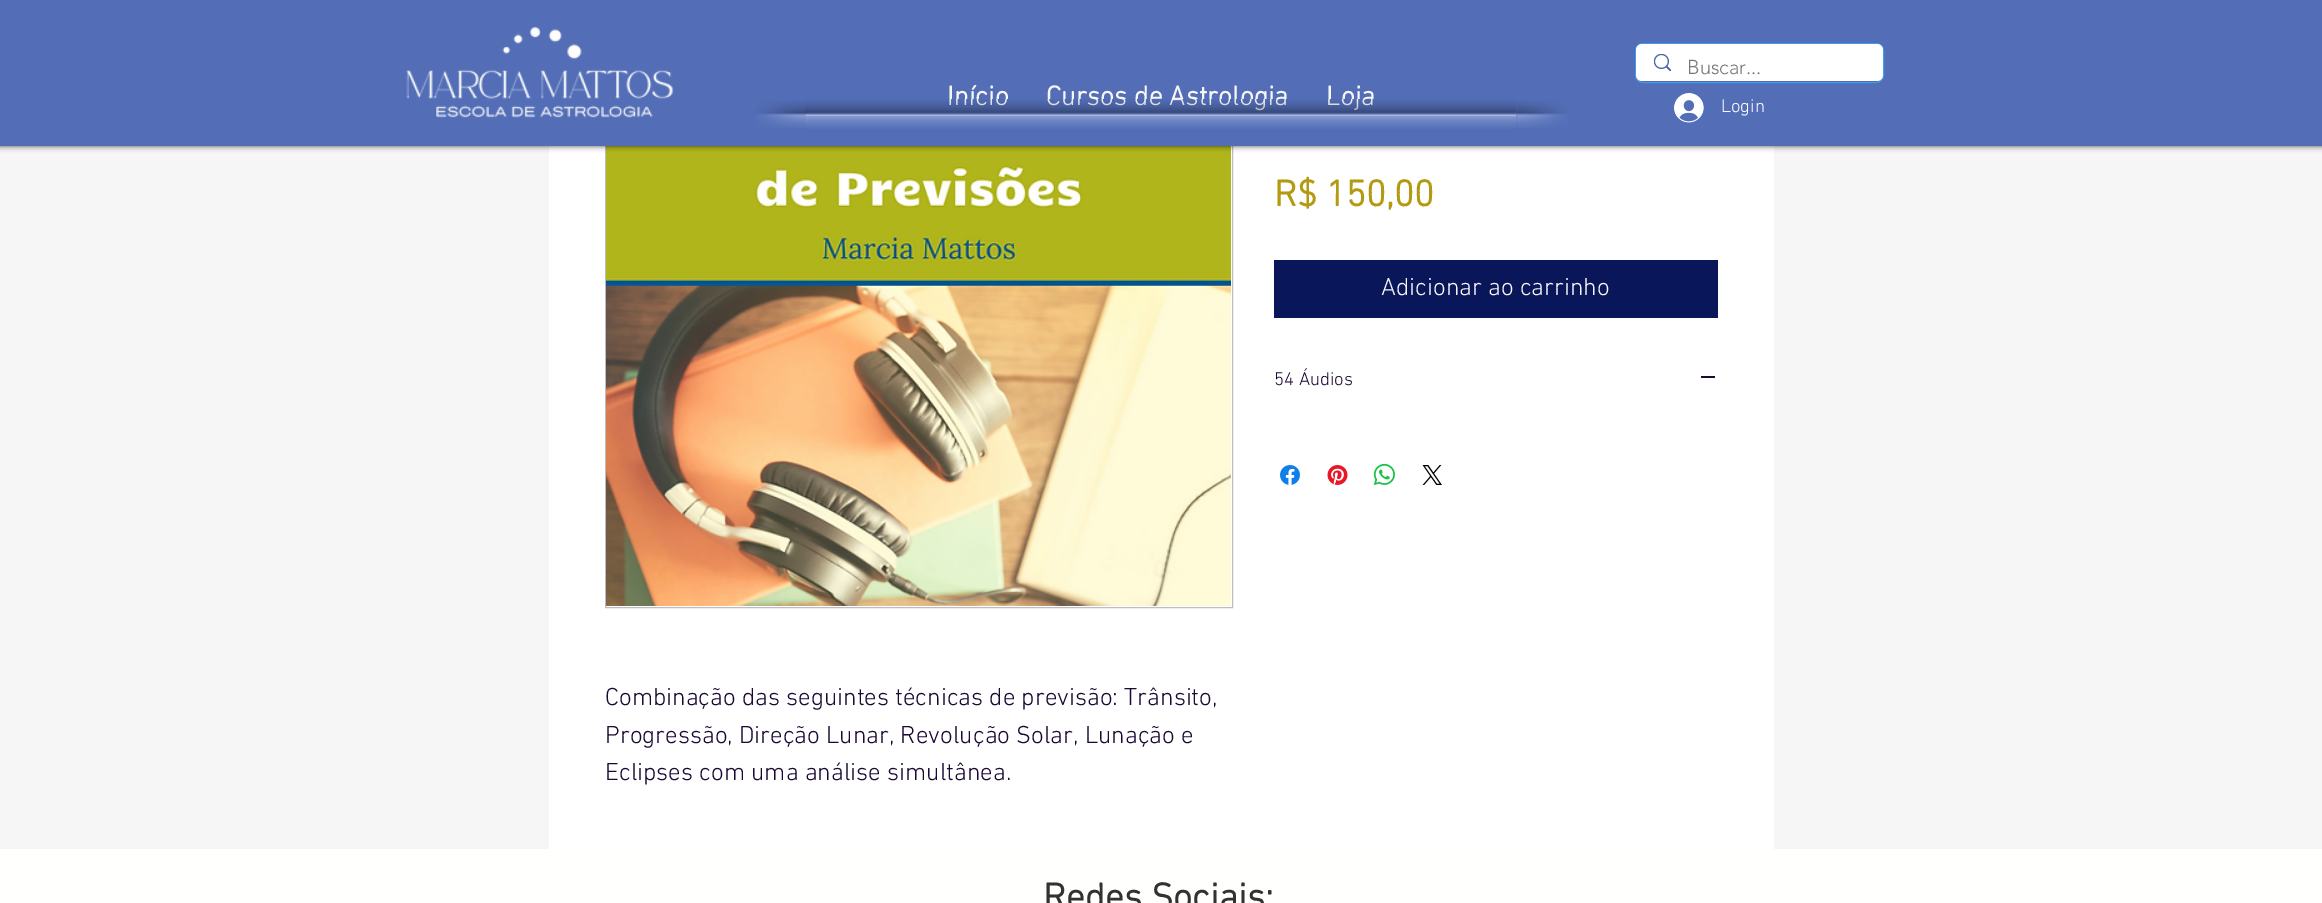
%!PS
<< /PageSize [2322 903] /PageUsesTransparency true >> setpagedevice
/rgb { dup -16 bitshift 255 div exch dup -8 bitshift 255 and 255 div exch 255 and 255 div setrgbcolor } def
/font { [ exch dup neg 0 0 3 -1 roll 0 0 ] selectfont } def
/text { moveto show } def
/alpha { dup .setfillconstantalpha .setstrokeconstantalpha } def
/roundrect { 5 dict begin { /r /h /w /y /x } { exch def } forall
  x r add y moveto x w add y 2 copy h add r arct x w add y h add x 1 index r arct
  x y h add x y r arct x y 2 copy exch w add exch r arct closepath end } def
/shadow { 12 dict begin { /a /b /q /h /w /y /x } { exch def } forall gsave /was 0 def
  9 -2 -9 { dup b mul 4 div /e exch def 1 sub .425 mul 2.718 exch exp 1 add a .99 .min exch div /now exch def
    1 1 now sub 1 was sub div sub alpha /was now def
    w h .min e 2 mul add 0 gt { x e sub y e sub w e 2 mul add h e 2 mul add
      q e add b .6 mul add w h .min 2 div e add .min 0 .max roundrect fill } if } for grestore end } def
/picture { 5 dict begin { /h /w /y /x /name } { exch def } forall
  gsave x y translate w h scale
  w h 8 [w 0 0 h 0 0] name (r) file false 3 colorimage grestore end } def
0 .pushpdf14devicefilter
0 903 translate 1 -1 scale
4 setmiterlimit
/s1 { /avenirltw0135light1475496-Light 20 font 16#787878 rgb } def
/s2 { /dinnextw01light-Bold 27.5 font 16#F6F6F6 rgb } def
/s3 { /dinnextw01light-Light 18.75 font 16#FFFFFF rgb } def
/s4 { /dinnextw01light-Bold 37.5 font 16#B39A12 rgb } def
/s5 { /dinnextw01light-Light 25 font 16#F6F6F6 rgb } def
/s6 { /dinnextw01light-Light 18.75 font 16#1B0833 rgb } def
/s7 { /dinnextw01light-Light 25 font 16#1B0833 rgb } def
/s8 { /dinnextw01light-Bold 37.5 font 16#323232 rgb } def
16#F6F6F6 rgb
0 0 2322 903 rectfill
16#FFFFFF rgb
549 146 1225 703 rectfill
16#BFBBC5 rgb
605.5 -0.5 627 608 rectstroke
(pic11.raw) 606 146 625 460 picture
16#000000 rgb
0 0 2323 146 0 3 0.7 shadow
16#536EB7 rgb
0 0 2322 146 rectfill
(pic1.raw) 406 27 268 91 picture
16#3D9BE9 rgb
1635.5 43.5 248 39 7.5 roundrect stroke
16#FFFFFF rgb
1636 44 247 37 6 roundrect fill
(pic2.raw) 1654 54 17 17 picture
s1
(Buscar...) 1687 74 text
s2
(Início) 947 105 text
(Cursos de Astrologia) 1046 105 text
(Loja) 1326 105 text
(pic3.raw) 806 99 710 30 picture
(pic4.raw) 755 100 52 28 picture
(pic5.raw) 1516 100 52 28 picture
(pic6.raw) 1674 93 30 30 picture
s3
(Login) 1721 112 text
s4
(R$ 150,00) 1274 206 text
16#091659 rgb
1274 260 444 58 rectfill
s5
(Adicionar ao carrinho) 1381 295 text
s6
(54 Áudios) 1274 385 text
1701 376 14 2 rectfill
(pic7.raw) 1280 465 20 20 picture
(pic8.raw) 1327 465 21 20 picture
(pic9.raw) 1373 463 22 22 picture
(pic10.raw) 1422 465 20 20 picture
s7
(Combinação das seguintes técnicas de previsão: Trânsito,) 605 705 text
(Progressão, Direção Lunar, Revolução Solar, Lunação e) 605 743 text
(Eclipses com uma análise simultânea.) 605 780 text
16#FFFFFE rgb
0 849 2322 54 rectfill
s8
(Redes Sociais:) 1043 909 text
.poppdf14devicefilter showpage
